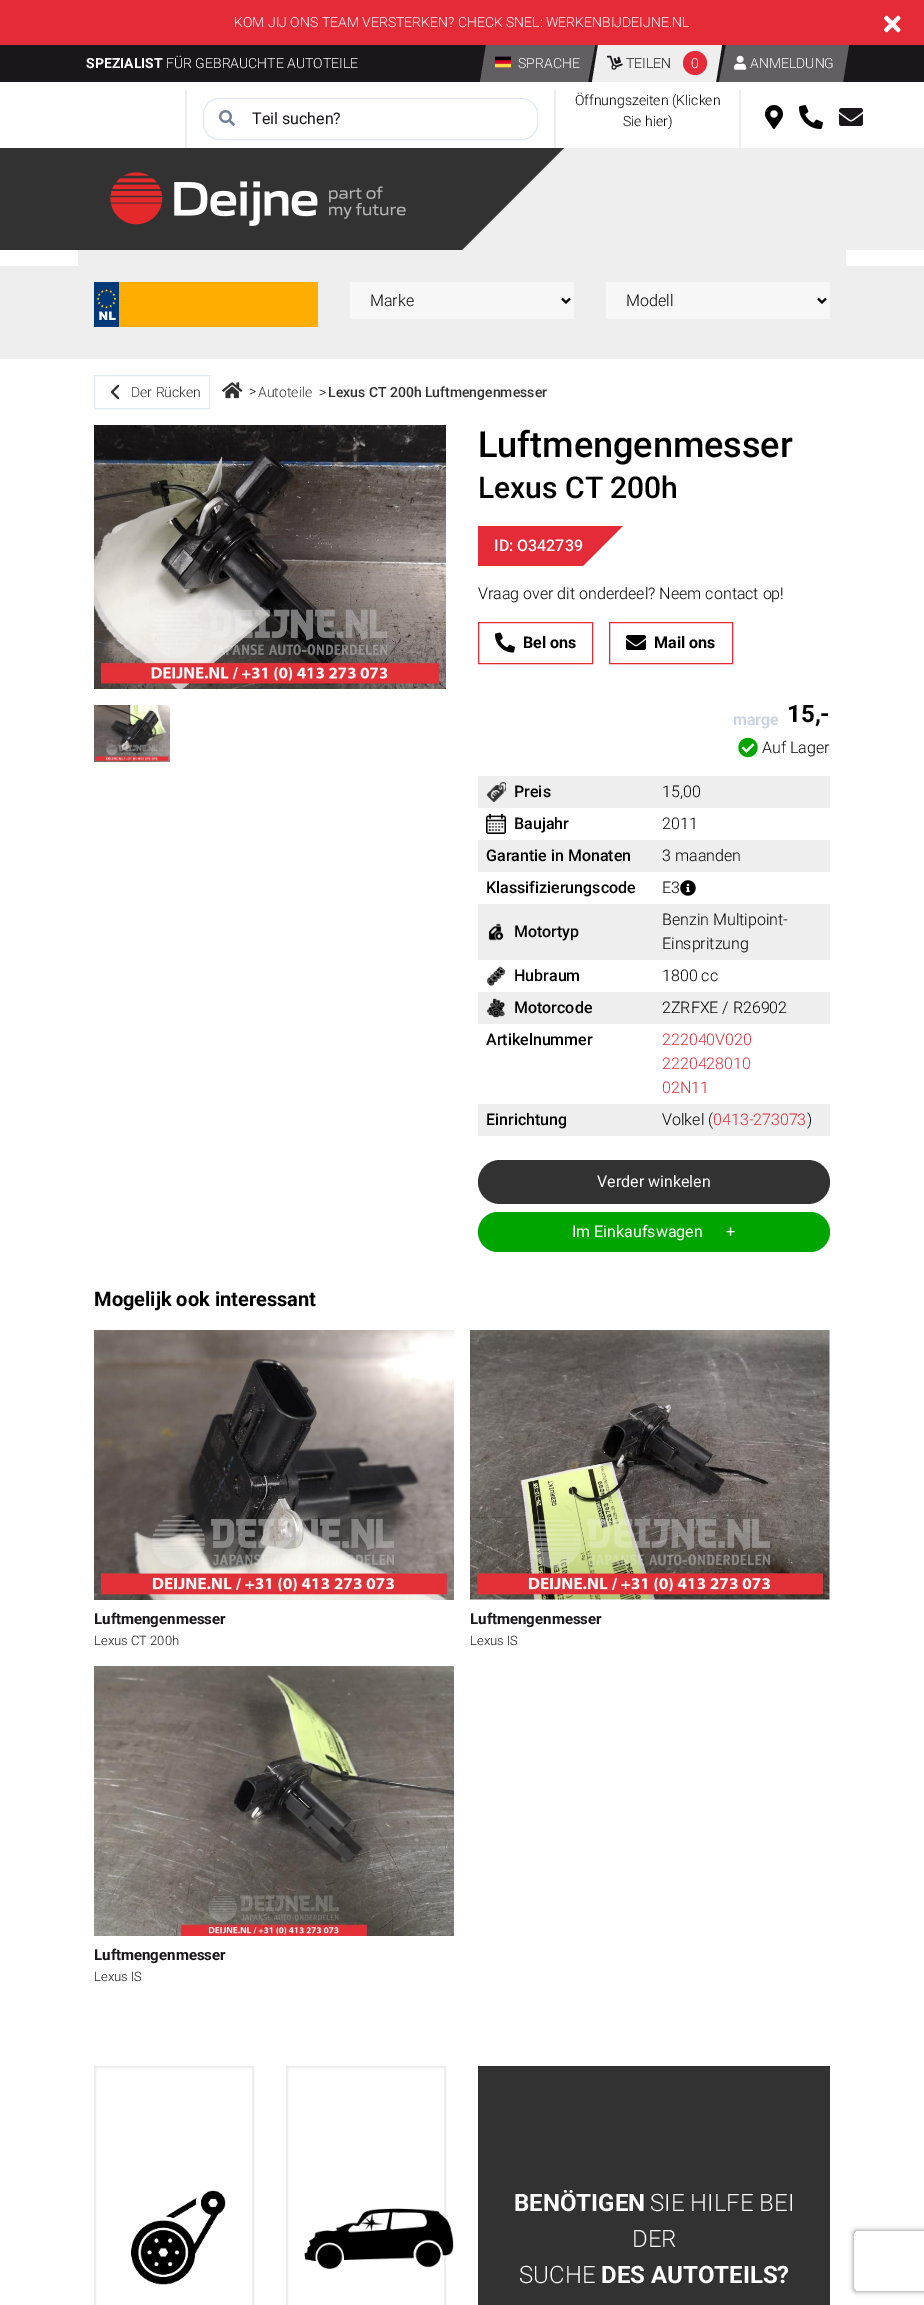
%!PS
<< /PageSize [924 2305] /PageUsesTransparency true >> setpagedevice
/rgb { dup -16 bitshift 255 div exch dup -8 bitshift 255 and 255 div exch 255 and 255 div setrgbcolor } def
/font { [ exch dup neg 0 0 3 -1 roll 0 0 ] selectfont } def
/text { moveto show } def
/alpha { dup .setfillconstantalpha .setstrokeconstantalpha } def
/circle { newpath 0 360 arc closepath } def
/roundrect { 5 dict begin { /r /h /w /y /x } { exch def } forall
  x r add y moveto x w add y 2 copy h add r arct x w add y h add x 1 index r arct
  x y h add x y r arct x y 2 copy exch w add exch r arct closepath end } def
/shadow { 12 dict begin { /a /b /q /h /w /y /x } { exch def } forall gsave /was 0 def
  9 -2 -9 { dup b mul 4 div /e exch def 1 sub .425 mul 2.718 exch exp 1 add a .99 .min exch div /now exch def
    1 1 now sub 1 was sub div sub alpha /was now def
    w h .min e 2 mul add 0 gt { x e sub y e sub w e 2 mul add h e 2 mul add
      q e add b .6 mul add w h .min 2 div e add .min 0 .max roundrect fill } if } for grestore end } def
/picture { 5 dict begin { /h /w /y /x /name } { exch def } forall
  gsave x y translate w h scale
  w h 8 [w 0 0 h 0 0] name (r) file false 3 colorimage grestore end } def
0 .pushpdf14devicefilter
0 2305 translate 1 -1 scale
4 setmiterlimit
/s1 { /Roboto-Light 14 font 16#FFFFFF rgb } def
/s2 { /Roboto-Bold 14 font 16#FFFFFF rgb } def
/s3 { /Roboto-Light 14 font 16#1A171B rgb } def
/s4 { /Roboto-Regular 16 font 16#1A171B rgb } def
/s5 { /Roboto-Light 14 font 16#000000 rgb } def
/s6 { /Roboto-Light 16 font 16#000000 rgb } def
/s7 { /Roboto-Light 14 font 16#323232 rgb } def
/s8 { /Roboto-Medium 14 font 16#323232 rgb } def
/s9 { /Roboto-Medium 36 font 16#000000 rgb } def
/s10 { /Roboto-Medium 30 font 16#000000 rgb } def
/s11 { /Roboto-Medium 16 font 16#FFFFFF rgb } def
/s12 { /Roboto-Bold 16 font 16#000000 rgb } def
/s13 { /Roboto-Bold 16 font 16#CBD5E0 rgb } def
/s14 { /Roboto-Bold 24 font 16#000000 rgb } def
/s15 { /Roboto-Medium 16 font 16#000000 rgb } def
/s16 { /Roboto-Light 16 font 16#E52B38 rgb } def
/s17 { /Roboto-Regular 16 font 16#FFFFFF rgb } def
/s18 { /Roboto-Bold 20 font 16#000000 rgb } def
/s19 { /Roboto-Bold 15 font 16#1A171B rgb } def
/s20 { /Roboto-Light 13 font 16#1A171B rgb } def
/s21 { /Roboto-Bold 24 font 16#FFFFFF rgb } def
/s22 { /Roboto-Light 24 font 16#FFFFFF rgb } def
16#FFFFFF rgb
0 0 924 2305 rectfill
16#1A171B rgb
0 45 924 37 rectfill
16#E52B38 rgb
0 0 924 45 rectfill
s1
(KOM JIJ ONS TEAM VERSTERKEN? CHECK SNEL: WERKENBIJDEIJNE.NL) 234 27 text
(pic1.raw) 884 15 17 18 picture
s2
(SPEZIALIST) 86 68 text
s1
(FÜR GEBRAUCHTE AUTOTEILE) 166 68 text
16#615F62 rgb
486 45 moveto 595 45 lineto 588 82 lineto 480 82 lineto closepath fill
(pic2.raw) 495 56 16 12 picture
s1
(SPRACHE) 518 68 text
16#EEEEEE rgb
598 45 moveto 722 45 lineto 716 82 lineto 592 82 lineto closepath fill
(pic3.raw) 607 55 16 15 picture
s3
(TEILEN) 626 68 text
16#E52B38 rgb
695 63 12 circle fill
s1
(0) 691 68 text
16#615F62 rgb
726 45 moveto 849 45 lineto 843 82 lineto 719 82 lineto closepath fill
(pic4.raw) 734 55 13 15 picture
s1
(ANMELDUNG) 750 68 text
16#EEEEEE rgb
185 90 2 58 rectfill
16#E2E8F0 rgb
203.5 98.5 334 41 15.5 roundrect stroke
(pic5.raw) 219 110 16 16 picture
s4
(Teil suchen?) 252 124 text
16#EEEEEE rgb
554 90 2 58 rectfill
s5
(Öffnungszeiten \(Klicken) 575 105 text
(Sie hier\)) 623 126 text
16#EEEEEE rgb
739 90 2 58 rectfill
(pic6.raw) 765 105 18 24 picture
(pic7.raw) 799 105 24 24 picture
(pic8.raw) 839 108 24 18 picture
16#323232 rgb
0 148 462 102 rectfill
16#EEEEEE rgb
462 148 462 211 rectfill
16#FFFFFF rgb
462 250 462 16 rectfill
16#EEEEEE rgb
0 266 462 93 rectfill
(pic9.raw) 110 172 296 54 picture
16#323232 rgb
462 148 moveto 564 148 lineto 462 250 lineto closepath fill
16#EEEEEE rgb
78 250 768 16 rectfill
(pic10.raw) 94 282 25 45 picture
16#FFAE00 rgb
119 282 199 45 rectfill
16#F7F7F7 rgb
350 282 224 37 rectfill
16#000000 rgb
2 setlinewidth
562 298.5 moveto 566 302.5 lineto 570 298.5 lineto stroke
s6
(Marke) 370 306 text
16#F7F7F7 rgb
606 282 224 37 rectfill
16#000000 rgb
818 298.5 moveto 822 302.5 lineto 826 298.5 lineto stroke
(Modell) 626 306 text
16#E2E8F0 rgb
1 setlinewidth
94.5 375.5 115 33 rectstroke
16#323232 rgb
2 setlinewidth
1 setlinecap
1 setlinejoin
118 398 moveto 112 392 lineto 118 386 lineto stroke
s7
(Der Rücken) 131 397 text
(pic11.raw) 222 382 21 17 picture
s5
(>) 249 396 text
s7
(Autoteile) 258 397 text
s5
(>) 319 397 text
s8
(Lexus CT 200h Luftmengenmesser) 328 397 text
(pic12.raw) 94 425 352 264 picture
(pic13.raw) 94 705 76 57 picture
s9
(Luftmengenmesser) 478 457 text
s10
(Lexus CT 200h) 478 498 text
16#E52B38 rgb
478 526 105 40 rectfill
s11
(ID: O342739) 494 551 text
16#E52B38 rgb
583 526 moveto 623 526 lineto 583 566 lineto closepath fill
s6
(Vraag over dit onderdeel? Neem contact op!) 478 599 text
16#E52B38 rgb
1 setlinewidth
0 setlinecap
0 setlinejoin
478.5 622.5 114 41 rectstroke
(pic14.raw) 495 632 20 21 picture
s12
(Bel ons) 523 648 text
16#E52B38 rgb
609.5 622.5 123 41 rectstroke
(pic15.raw) 626 635 20 15 picture
s12
(Mail ons) 654 648 text
s13
(marge) 733 725 text
s14
(15,-) 787 722 text
(pic16.raw) 738 737 20 21 picture
s6
(Auf Lager) 762 753 text
16#EEEEEE rgb
478 776 352 32 rectfill
(pic17.raw) 486 782 20 20 picture
s15
(Preis) 514 797 text
s6
(15,00) 662 797 text
(pic18.raw) 486 814 20 20 picture
s15
(Baujahr) 514 829 text
s6
(2011) 662 829 text
16#EEEEEE rgb
478 840 352 32 rectfill
s15
(Garantie in Monaten) 486 861 text
s6
(3 maanden) 662 861 text
s15
(Klassifizierungscode) 486 893 text
s6
(E3) 662 893 text
(pic19.raw) 680 880 16 16 picture
16#EEEEEE rgb
478 904 352 56 rectfill
(pic20.raw) 488 923 16 18 picture
s15
(Motortyp) 514 937 text
s6
(Benzin Multipoint-) 662 925 text
(Einspritzung) 662 949 text
(pic21.raw) 486 966 20 20 picture
s15
(Hubraum) 514 981 text
s6
(1800 cc) 662 981 text
16#EEEEEE rgb
478 992 352 32 rectfill
(pic22.raw) 486 998 20 20 picture
s15
(Motorcode) 514 1013 text
s6
(2ZRFXE / R26902) 662 1013 text
s15
(Artikelnummer) 486 1045 text
s16
(222040V020) 662 1045 text
(2220428010) 662 1069 text
(02N11) 662 1093 text
16#EEEEEE rgb
478 1104 352 32 rectfill
s15
(Einrichtung) 486 1125 text
s6
(Volkel \() 662 1125 text
s16
(0413-273073) 713 1125 text
s6
(\)) 807 1125 text
16#323232 rgb
478 1160 352 44 22 roundrect fill
s17
(Verder winkelen) 597 1187 text
16#00A500 rgb
478 1212 352 40 20 roundrect fill
s17
(Im Einkaufswagen      +) 572 1237 text
s18
(Mogelijk ook interessant) 94 1306 text
(pic23.raw) 94 1330 360 270 picture
s19
(Luftmengenmesser) 94 1624 text
s20
(Lexus CT 200h) 94 1645 text
(pic24.raw) 470 1330 360 270 picture
s19
(Luftmengenmesser) 470 1624 text
s20
(Lexus IS) 470 1645 text
(pic25.raw) 94 1666 360 270 picture
s19
(Luftmengenmesser) 94 1960 text
s20
(Lexus IS) 94 1981 text
16#EEEEEE rgb
2 setlinewidth
95 2067 158 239 rectstroke
(pic26.raw) 131 2190 95 95 picture
287 2067 158 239 rectstroke
(pic27.raw) 304 2208 150 61 picture
16#323232 rgb
478 2066 352 239 rectfill
s21
(BENÖTIGEN) 514 2211 text
s22
(SIE HILFE BEI) 650 2211 text
(DER) 632 2247 text
(SUCHE) 519 2283 text
s21
(DES AUTOTEILS?) 601 2283 text
gsave
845 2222 moveto 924 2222 lineto 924 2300 lineto 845 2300 lineto closepath 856 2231 moveto 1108 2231 lineto 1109 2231 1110 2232 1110 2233 curveto 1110 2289 lineto 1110 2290 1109 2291 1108 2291 curveto 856 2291 lineto 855 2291 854 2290 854 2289 curveto 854 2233 lineto 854 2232 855 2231 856 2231 curveto closepath eoclip newpath
16#808080 rgb
854 2231 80 60 2 2.5 1 shadow
grestore
.poppdf14devicefilter showpage
